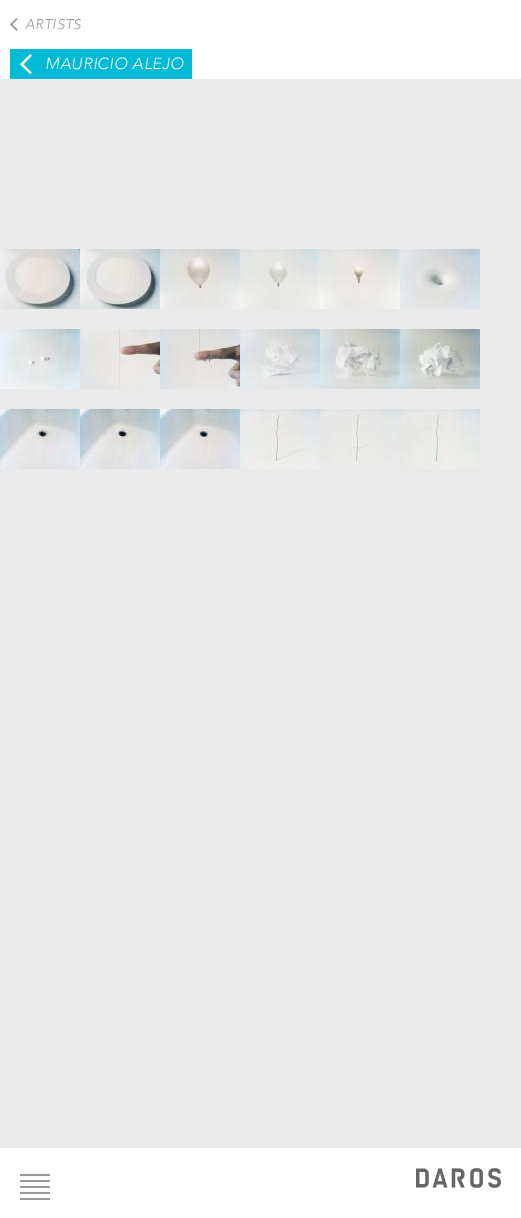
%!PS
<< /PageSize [521 1218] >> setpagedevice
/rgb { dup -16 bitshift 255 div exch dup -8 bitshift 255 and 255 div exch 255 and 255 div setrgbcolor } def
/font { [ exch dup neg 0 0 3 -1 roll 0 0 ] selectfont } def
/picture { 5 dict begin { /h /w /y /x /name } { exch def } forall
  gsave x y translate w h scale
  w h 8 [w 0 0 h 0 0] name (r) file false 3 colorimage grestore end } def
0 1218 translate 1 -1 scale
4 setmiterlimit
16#EAEAEA rgb
0 0 521 1218 rectfill
16#FFFFFF rgb
0 0 521 79 rectfill
(pic1.raw) 10 18 8 13 picture
/Avenir-LightItalic 14 font
16#9A9A9A rgb
25 29 moveto 0.5 0 (ARTISTS) ashow
16#00BAD6 rgb
10 49 182 30 rectfill
(pic2.raw) 20 54 12 21 picture
/Avenir-LightItalic 16 font
16#FFFFFF rgb
45 69 moveto 0.5 0 (MAURICIO ALEJO) ashow
(pic3.raw) 0 249 80 60 picture
(pic4.raw) 80 249 80 60 picture
(pic5.raw) 160 249 80 60 picture
(pic6.raw) 240 249 80 60 picture
(pic7.raw) 320 249 80 60 picture
(pic8.raw) 400 249 80 60 picture
(pic9.raw) 0 329 80 60 picture
(pic10.raw) 80 329 80 60 picture
(pic11.raw) 160 329 80 60 picture
(pic12.raw) 240 329 80 60 picture
(pic13.raw) 320 329 80 60 picture
(pic14.raw) 400 329 80 60 picture
(pic15.raw) 0 409 80 60 picture
(pic16.raw) 80 409 80 60 picture
(pic17.raw) 160 409 80 60 picture
(pic18.raw) 240 409 80 60 picture
(pic19.raw) 320 409 80 56 picture
(pic20.raw) 400 409 80 60 picture
0 1148 521 70 rectfill
(pic21.raw) 416 1168 85 20 picture
16#9A9A9A rgb
20 1174 30 2 rectfill
20 1180 30 2 rectfill
20 1186 30 2 rectfill
20 1192 30 2 rectfill
20 1198 30 2 rectfill
showpage
